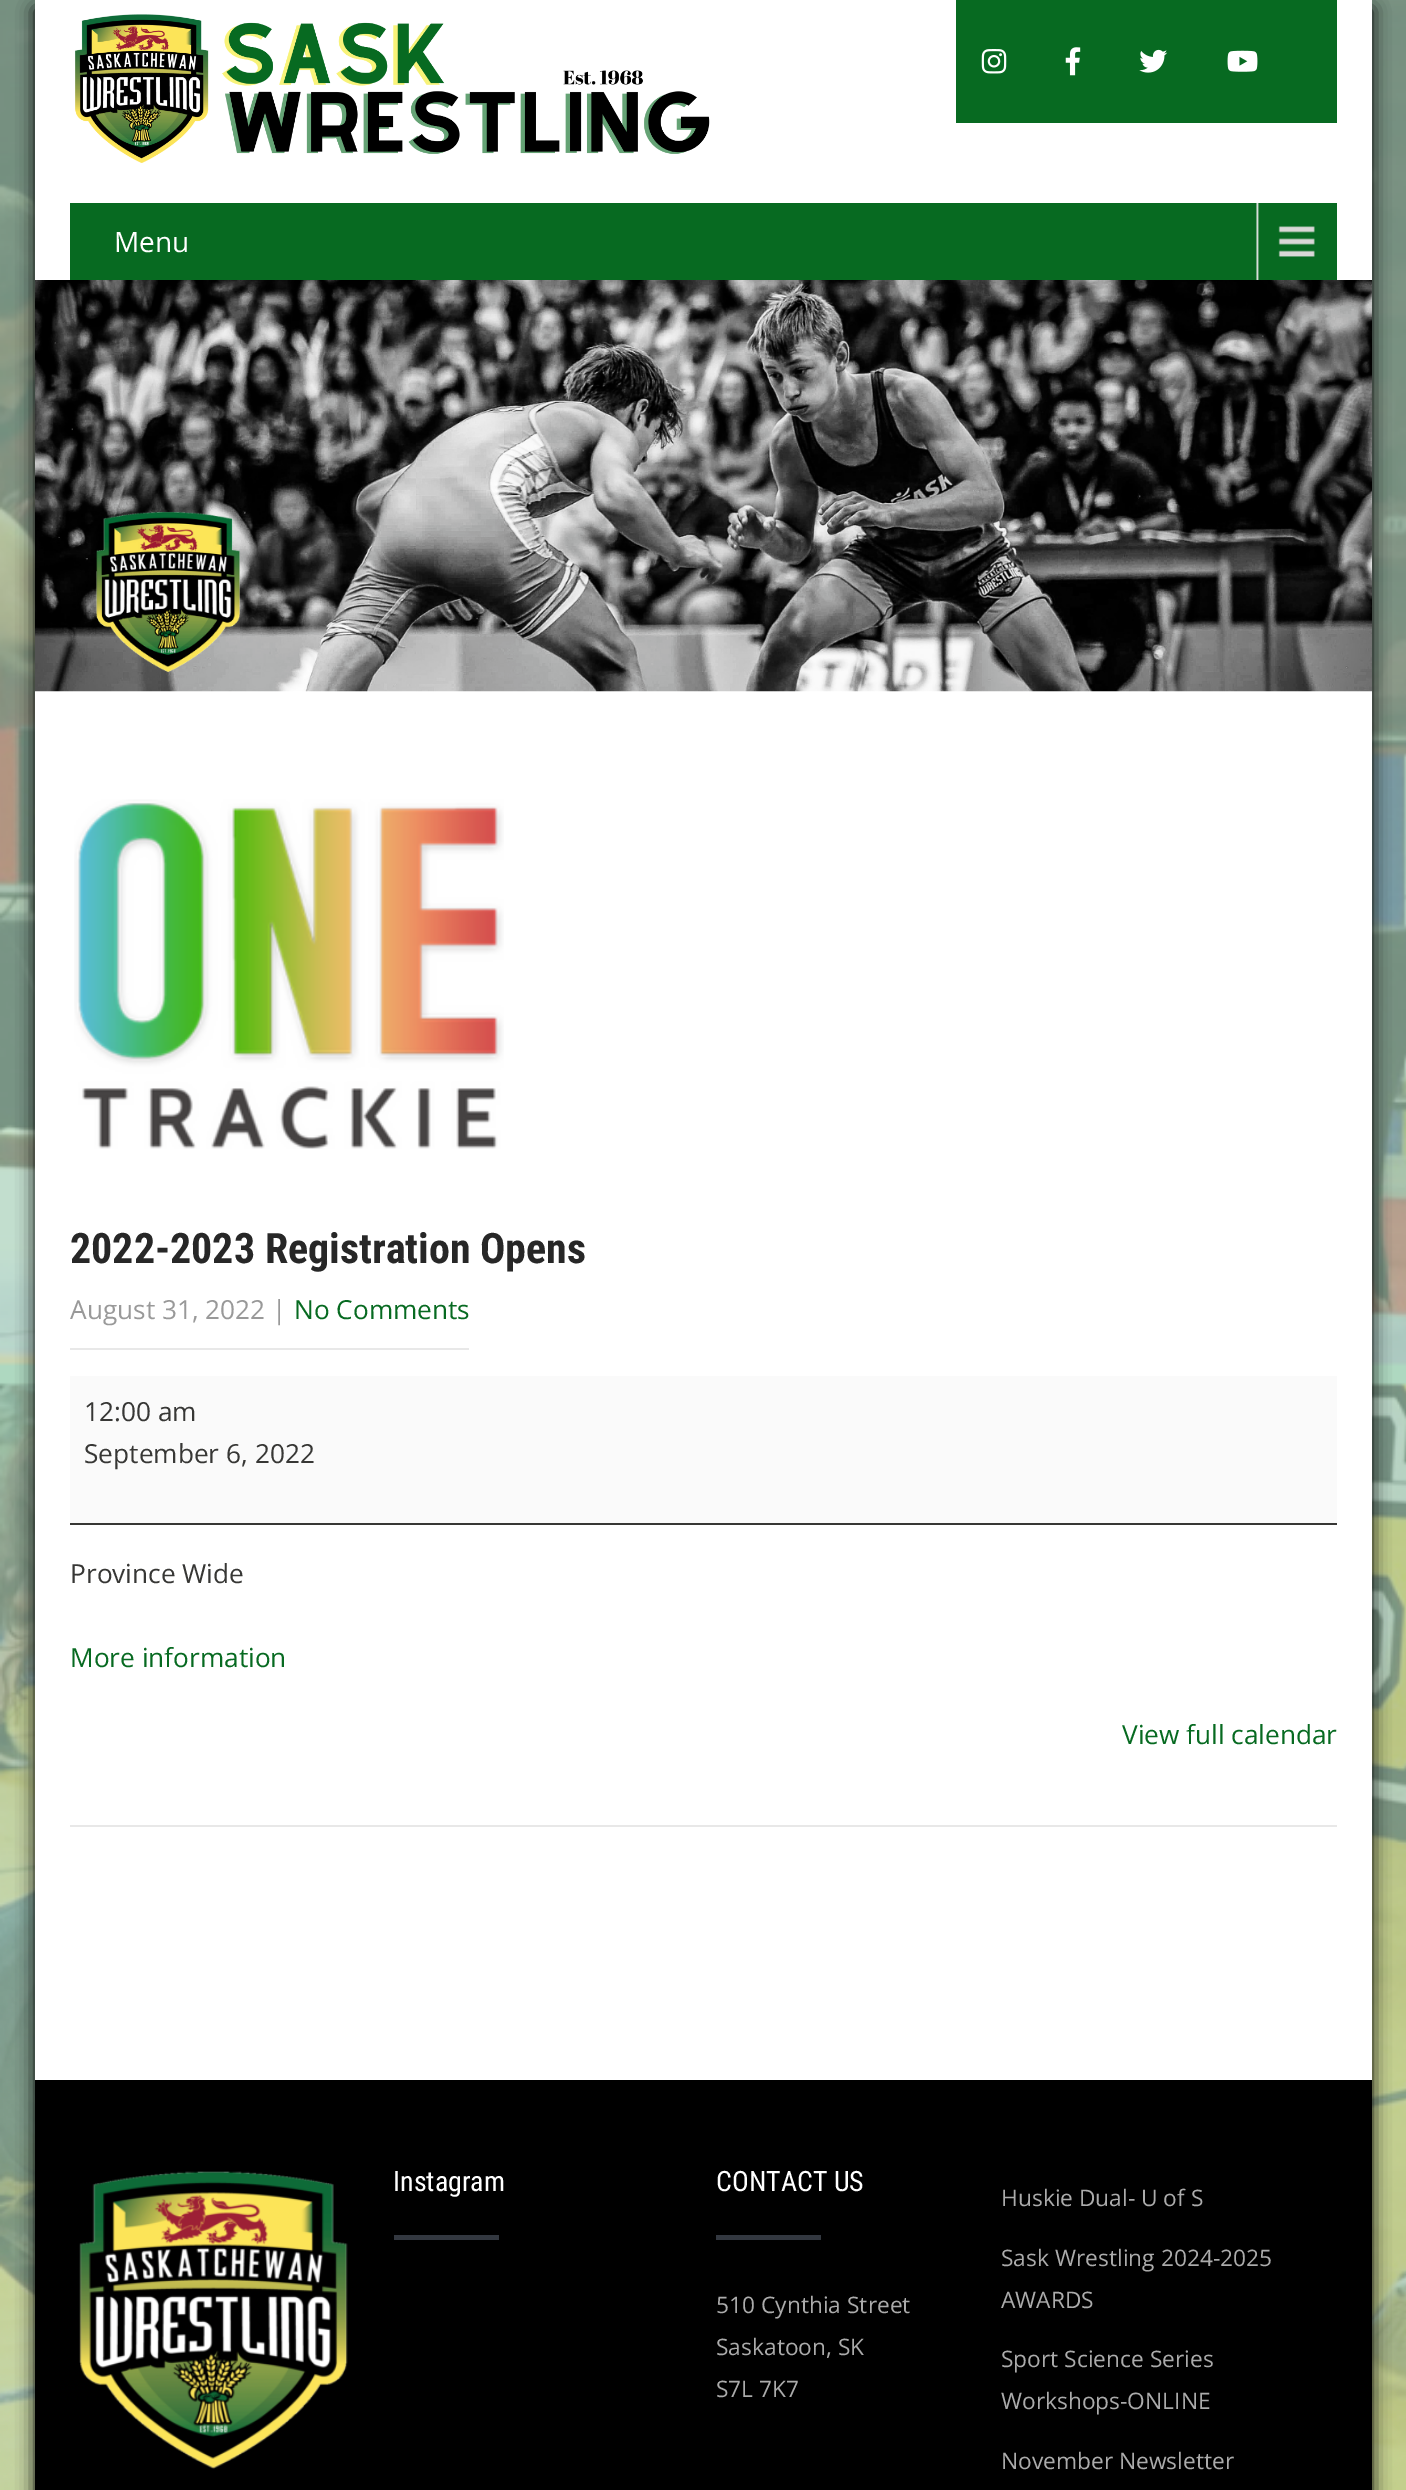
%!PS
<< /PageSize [1406 2490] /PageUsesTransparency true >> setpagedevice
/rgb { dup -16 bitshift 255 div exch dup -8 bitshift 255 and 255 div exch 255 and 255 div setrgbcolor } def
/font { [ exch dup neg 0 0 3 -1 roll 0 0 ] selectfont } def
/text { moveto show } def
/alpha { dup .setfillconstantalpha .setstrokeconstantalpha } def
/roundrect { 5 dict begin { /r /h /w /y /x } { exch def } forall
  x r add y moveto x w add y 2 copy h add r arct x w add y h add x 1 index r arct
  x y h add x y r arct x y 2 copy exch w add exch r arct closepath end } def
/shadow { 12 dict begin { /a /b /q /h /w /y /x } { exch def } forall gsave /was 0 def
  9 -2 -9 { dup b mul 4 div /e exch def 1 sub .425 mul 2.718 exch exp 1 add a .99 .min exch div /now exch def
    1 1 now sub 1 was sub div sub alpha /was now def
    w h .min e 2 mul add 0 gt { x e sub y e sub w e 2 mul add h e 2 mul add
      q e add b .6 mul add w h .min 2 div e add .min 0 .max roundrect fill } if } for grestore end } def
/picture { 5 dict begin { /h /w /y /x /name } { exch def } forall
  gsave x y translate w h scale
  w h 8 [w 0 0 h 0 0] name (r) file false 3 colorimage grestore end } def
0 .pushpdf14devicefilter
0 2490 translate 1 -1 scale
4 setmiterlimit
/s1 { /OpenSans-Regular 28 font 16#FFFFFF rgb } def
/s2 { /RobotoCondensed-Bold 42 font 16#272727 rgb } def
/s3 { /OpenSans-Regular 26.25 font 16#999999 rgb } def
/s4 { /OpenSans-Regular 26.25 font 16#076A21 rgb } def
/s5 { /OpenSans-Regular 26.25 font 16#373735 rgb } def
/s6 { /RobotoCondensed-Regular 28 font 16#FFFFFF rgb } def
/s7 { /OpenSans-Regular 22.75 font 16#ABABAB rgb } def
16#FFFFFF rgb
0 0 1406 2490 rectfill
(pic1.raw) 0 0 1406 2490 picture
16#000000 rgb
35 9 1337 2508 0 9 1 shadow
16#FFFFFF rgb
35 0 1337 2080 rectfill
(pic2.raw) 75 14 635 149 picture
16#076A21 rgb
956 0 381 123 rectfill
(pic3.raw) 981 49 26 25 picture
(pic4.raw) 1065 47 16 29 picture
(pic5.raw) 1139 49 29 24 picture
(pic6.raw) 1227 50 31 22 picture
70 203 1267 77 rectfill
(pic7.raw) 1256 203 59 77 picture
s1
(Menu) 114 252 text
(pic8.raw) 35 280 1337 412 picture
(pic9.raw) 74 799 430 350 picture
s2
(2022-2023 Registration Opens) 70 1263 text
16#E8E8E8 rgb
70 1348 399 2 rectfill
s3
(August 31, 2022 |) 70 1319 text
s4
(No Comments) 294 1319 text
16#FAFAFA rgb
70 1376 1267 147 rectfill
16#373735 rgb
70 1523 1267 2 rectfill
(12:00 am) 84 1421 text
(September 6, 2022) 84 1463 text
(Province Wide) 70 1583 text
s4
(More information) 70 1667 text
(View full calendar) 1122 1744 text
16#E8E8E8 rgb
70 1825 1267 2 rectfill
16#000000 rgb
35 2080 1337 410 rectfill
(pic10.raw) 79 2171 269 298 picture
s6
(Instagram) 393 2191 text
16#333840 rgb
394 2235 105 5 rectfill
s6
(CONTACT US) 716 2191 text
16#333840 rgb
716 2235 105 5 rectfill
s7
(510 Cynthia Street) 716 2313 text
(Saskatoon, SK) 716 2355 text
(S7L 7K7) 716 2397 text
(Huskie Dual- U of S) 1001 2206 text
(Sask Wrestling 2024-2025) 1001 2266 text
(AWARDS) 1001 2308 text
(Sport Science Series) 1001 2367 text
(Workshops-ONLINE) 1001 2409 text
(November Newsletter) 1001 2469 text
.poppdf14devicefilter showpage
